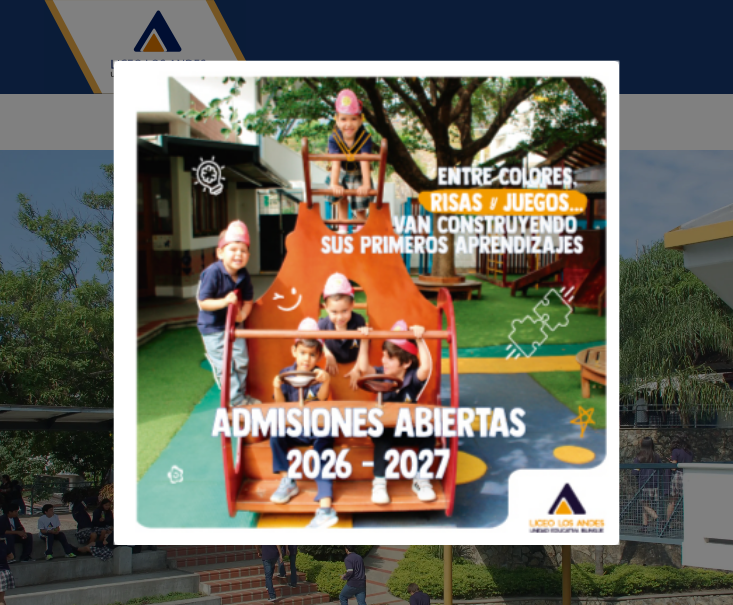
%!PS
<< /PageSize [733 605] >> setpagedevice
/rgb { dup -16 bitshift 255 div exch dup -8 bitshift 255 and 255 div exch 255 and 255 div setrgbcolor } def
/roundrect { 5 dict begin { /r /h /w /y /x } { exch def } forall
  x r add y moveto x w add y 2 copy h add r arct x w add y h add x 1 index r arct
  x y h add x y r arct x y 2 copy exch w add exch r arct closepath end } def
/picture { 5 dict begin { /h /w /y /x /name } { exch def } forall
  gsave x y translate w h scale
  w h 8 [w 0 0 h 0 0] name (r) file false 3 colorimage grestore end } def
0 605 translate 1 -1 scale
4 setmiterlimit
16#808080 rgb
0 0 733 605 rectfill
16#0B1C39 rgb
0 0 733 94 rectfill
(pic1.raw) 44 0 202 94 picture
(pic3.raw) 0 150 733 455 picture
16#FFFFFF rgb
114 61 505 484 5 roundrect fill
(pic2.raw) 113 60 507 485 picture
showpage
